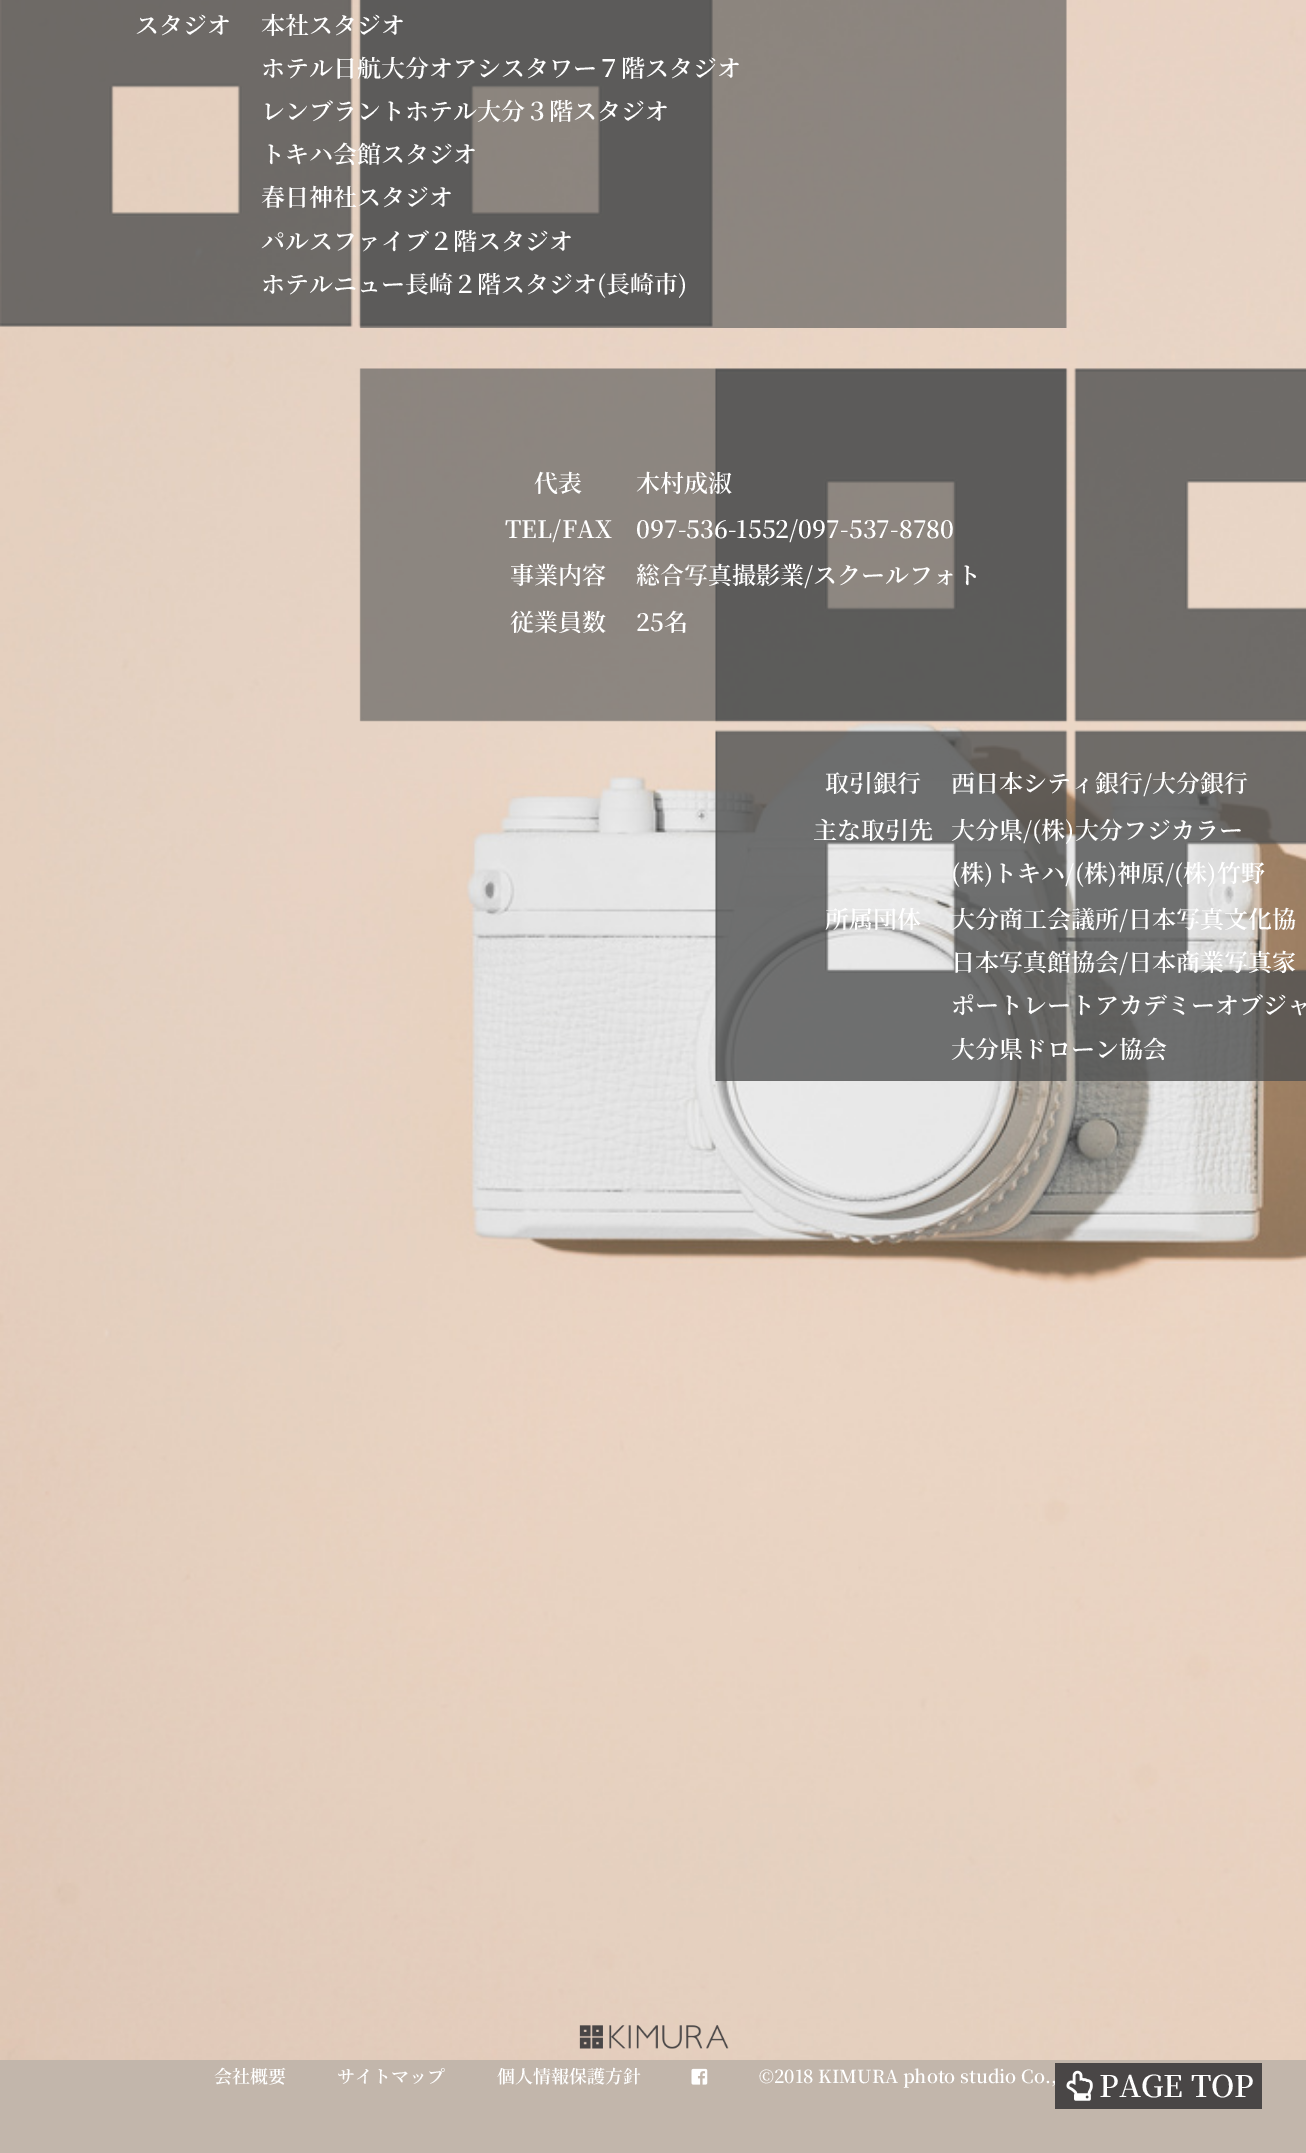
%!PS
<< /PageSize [1306 2153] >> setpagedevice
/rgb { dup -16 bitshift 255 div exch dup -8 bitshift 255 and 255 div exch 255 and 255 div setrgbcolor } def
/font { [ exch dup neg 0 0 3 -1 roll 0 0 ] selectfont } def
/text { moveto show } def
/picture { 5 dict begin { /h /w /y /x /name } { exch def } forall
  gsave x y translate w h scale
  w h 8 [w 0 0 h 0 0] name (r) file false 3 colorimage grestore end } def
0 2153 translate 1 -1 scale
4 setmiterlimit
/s1 { /NotoSerifJP-ExtraLight 24 font 16#FFFFFF rgb } def
/s2 { /NotoSerifJP-ExtraLight 18 font 16#FFFFFF rgb } def
/s3 { /NotoSerifJP-ExtraLight 30 font 16#FFFFFF rgb } def
16#FFFFFF rgb
0 0 1306 2153 rectfill
(pic1.raw) 0 0 1306 2060 picture
(pic2.raw) 0 0 1067 328 picture
s1
(スタジオ) 135 34 text
(本社スタジオ) 261 34 text
(ホテル日航大分オアシスタワー７階スタジオ) 261 77 text
(レンブラントホテル大分３階スタジオ) 261 120 text
(トキハ会館スタジオ) 261 163 text
(春日神社スタジオ) 261 206 text
(パルスファイブ２階スタジオ) 261 250 text
(ホテルニュー長崎２階スタジオ\(長崎市\)) 261 293 text
(pic3.raw) 359 368 947 355 picture
(代表) 534 492 text
(木村成淑) 636 492 text
(TEL/FAX) 505 538 text
(097-536-1552/097-537-8780) 636 538 text
(事業内容) 510 584 text
(総合写真撮影業/スクールフォト) 636 584 text
(従業員数) 510 631 text
(25名) 636 631 text
(pic4.raw) 715 729 591 352 picture
(取引銀行) 825 792 text
(西日本シティ銀行/大分銀行) 951 792 text
(主な取引先) 813 839 text
(大分県/\(株\)大分フジカラー) 951 839 text
(\(株\)トキハ/\(株\)神原/\(株\)竹野) 951 882 text
(所属団体) 825 928 text
(大分商工会議所/日本写真文化協) 951 928 text
(日本写真館協会/日本商業写真家) 951 971 text
(ポートレートアカデミーオブジャ) 951 1014 text
(大分県ドローン協会) 951 1058 text
(pic5.raw) 579 2025 150 24 picture
16#C2B6AB rgb
0 2060 1306 93 rectfill
s2
(会社概要) 214 2083 text
(サイトマップ) 337 2083 text
(個人情報保護方針) 497 2083 text
(pic6.raw) 691 2068 17 17 picture
(©2018 KIMURA photo studio Co.,) 759 2083 text
16#494646 rgb
1055 2063 207 46 rectfill
(pic7.raw) 1066 2070 27 31 picture
s3
(PAGE TOP) 1099 2097 text
showpage
